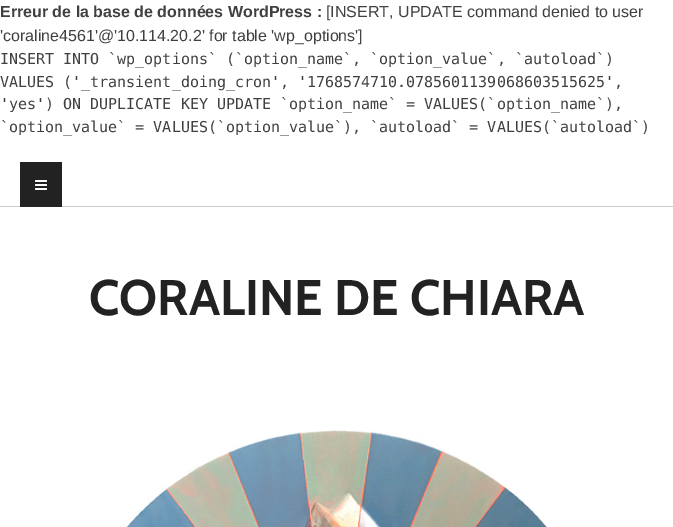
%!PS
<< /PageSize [673 527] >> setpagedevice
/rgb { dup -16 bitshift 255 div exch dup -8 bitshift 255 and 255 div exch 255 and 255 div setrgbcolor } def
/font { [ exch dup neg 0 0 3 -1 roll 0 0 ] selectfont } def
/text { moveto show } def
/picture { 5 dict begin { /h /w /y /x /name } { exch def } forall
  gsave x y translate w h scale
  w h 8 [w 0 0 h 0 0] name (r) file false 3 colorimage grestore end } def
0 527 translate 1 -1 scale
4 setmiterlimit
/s1 { /LiberationSans-Bold 16 font 16#404040 rgb } def
/s2 { /LiberationSans-Regular 16 font 16#404040 rgb } def
/s3 { /DejaVuSansMono-Regular 15 font 16#404040 rgb } def
/s4 { /Cabin-Bold 50 font 16#222222 rgb } def
16#FFFFFF rgb
0 0 673 527 rectfill
s1
(Erreur de la base de données WordPress :) 0 17 text
s2
([INSERT, UPDATE command denied to user) 326 17 text
('coraline4561'@'10.114.20.2' for table 'wp_options']) 0 41 text
s3
(INSERT INTO `wp_options` \(`option_name`, `option_value`, `autoload`\)) 0 64 text
(VALUES \('_transient_doing_cron', '1768574710.0785601139068603515625',) 0 87 text
('yes'\) ON DUPLICATE KEY UPDATE `option_name` = VALUES\(`option_name`\),) 0 109 text
(`option_value` = VALUES\(`option_value`\), `autoload` = VALUES\(`autoload`\)) 0 132 text
16#CCCCCC rgb
0 206 673 1 rectfill
16#222222 rgb
20 162 42 45 rectfill
(pic1.raw) 35 180 12 10 picture
s4
(CORALINE DE CHIARA) 89 315 text
(pic2.raw) 126 430 421 97 picture
showpage
